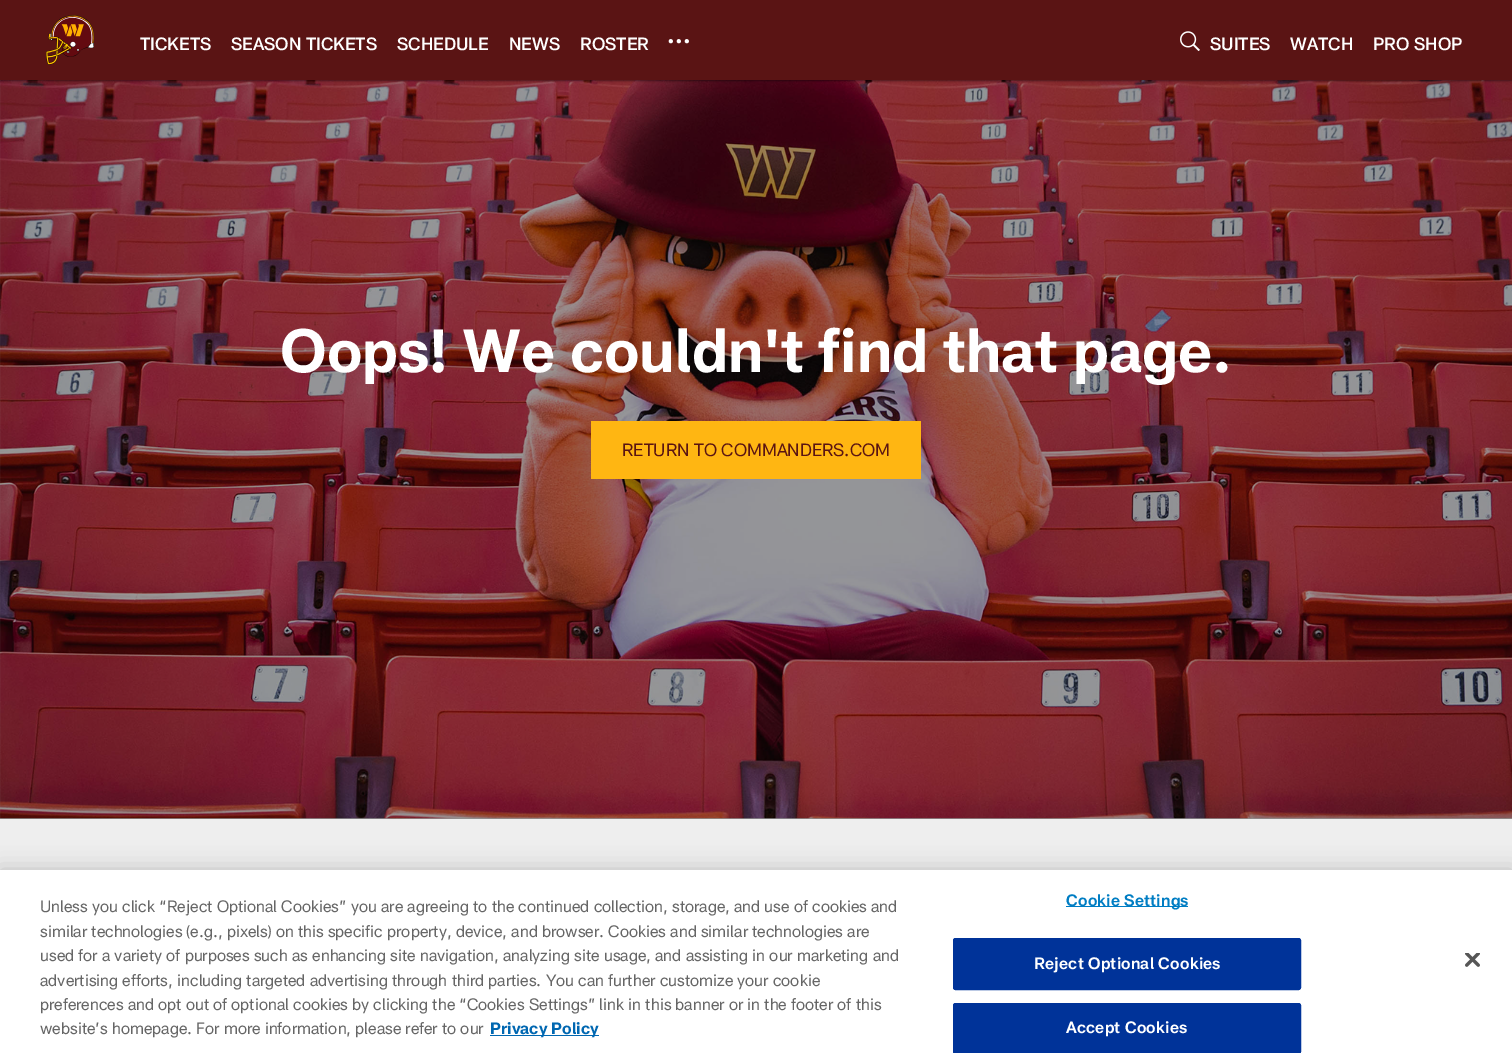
%!PS
<< /PageSize [1512 1053] /PageUsesTransparency true >> setpagedevice
/rgb { dup -16 bitshift 255 div exch dup -8 bitshift 255 and 255 div exch 255 and 255 div setrgbcolor } def
/font { [ exch dup neg 0 0 3 -1 roll 0 0 ] selectfont } def
/text { moveto show } def
/alpha { dup .setfillconstantalpha .setstrokeconstantalpha } def
/circle { newpath 0 360 arc closepath } def
/roundrect { 5 dict begin { /r /h /w /y /x } { exch def } forall
  x r add y moveto x w add y 2 copy h add r arct x w add y h add x 1 index r arct
  x y h add x y r arct x y 2 copy exch w add exch r arct closepath end } def
/shadow { 12 dict begin { /a /b /q /h /w /y /x } { exch def } forall gsave /was 0 def
  9 -2 -9 { dup b mul 4 div /e exch def 1 sub .425 mul 2.718 exch exp 1 add a .99 .min exch div /now exch def
    1 1 now sub 1 was sub div sub alpha /was now def
    w h .min e 2 mul add 0 gt { x e sub y e sub w e 2 mul add h e 2 mul add
      q e add b .6 mul add w h .min 2 div e add .min 0 .max roundrect fill } if } for grestore end } def
/picture { 5 dict begin { /h /w /y /x /name } { exch def } forall
  gsave x y translate w h scale
  w h 8 [w 0 0 h 0 0] name (r) file false 3 colorimage grestore end } def
0 .pushpdf14devicefilter
0 1053 translate 1 -1 scale
4 setmiterlimit
/s1 { /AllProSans-Medium 17.5 font 16#FFFFFF rgb } def
/s2 { /AllProSans-Bold 60 font 16#FFFFFF rgb } def
/s3 { /AllProSans-Regular 17.5 font 16#5A1412 rgb } def
/s4 { /AllProSans-Regular 16.25 font 16#666666 rgb } def
/s5 { /AllProSans-Bold 16.25 font 16#0067B1 rgb } def
16#EEEEEE rgb
0 0 1512 1053 rectfill
16#8F8F8F rgb
0 818 1512 1 rectfill
(pic3.raw) 0 80 1512 739 picture
16#000000 rgb
0 1 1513 80 0 1 0.47 shadow
16#5A1414 rgb
0 0 1512 80 rectfill
(pic1.raw) 46 15 48 50 picture
s1
(TICKETS) 140 50 text
(SEASON TICKETS) 231 50 text
(SCHEDULE) 397 50 text
(NEWS) 509 50 text
(ROSTER) 580 50 text
686.8 41.2 2 circle fill
678.8 41.2 2 circle fill
670.8 41.2 2 circle fill
(pic2.raw) 1180 31 20 20 picture
(SUITES) 1210 50 text
(WATCH) 1290 50 text
(PRO SHOP) 1373 50 text
s2
(Oops! We couldn't find that page.) 280 372 text
16#FFB612 rgb
591 421 330 58 rectfill
s3
(RETURN TO COMMANDERS.COM) 622 456 text
16#000000 rgb
0 870 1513 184 0 11 0.2 shadow
16#FFFFFF rgb
0 870 1512 183 rectfill
s4
(Unless you click “Reject Optional Cookies” you are agreeing to the continued collection, storage, and use of cookies and) 40 912 text
(similar technologies \(e.g., pixels\) on this specific property, device, and browser. Cookies and similar technologies are) 40 937 text
(used for a variety of purposes such as enhancing site navigation, analyzing site usage, and assisting in our marketing and) 40 961 text
(advertising efforts, including targeted advertising through third parties. You can further customize your cookie) 40 986 text
(preferences and opt out of optional cookies by clicking the “Cookies Settings” link in this banner or in the footer of this) 40 1010 text
(website’s homepage. For more information, please refer to our) 40 1034 text
16#0067B1 rgb
490 1035 109 1 rectfill
s5
(Privacy Policy) 490 1034 text
16#007DC3 rgb
1066 906 122 1 rectfill
/AllProSans-SemiBold 16.25 font
1066 906 moveto 0.2 0 (Cookie Settings) ashow
16#003399 rgb
953.5 938.5 347 51 2 roundrect gsave fill grestore
stroke
16#FFFFFF rgb
1034 969 moveto 0.2 0 (Reject Optional Cookies) ashow
16#003399 rgb
953.5 1003.5 347 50 2 roundrect gsave fill grestore
stroke
16#FFFFFF rgb
1066 1033 moveto 0.2 0 (Accept Cookies) ashow
(pic4.raw) 1465 953 15 14 picture
.poppdf14devicefilter showpage
